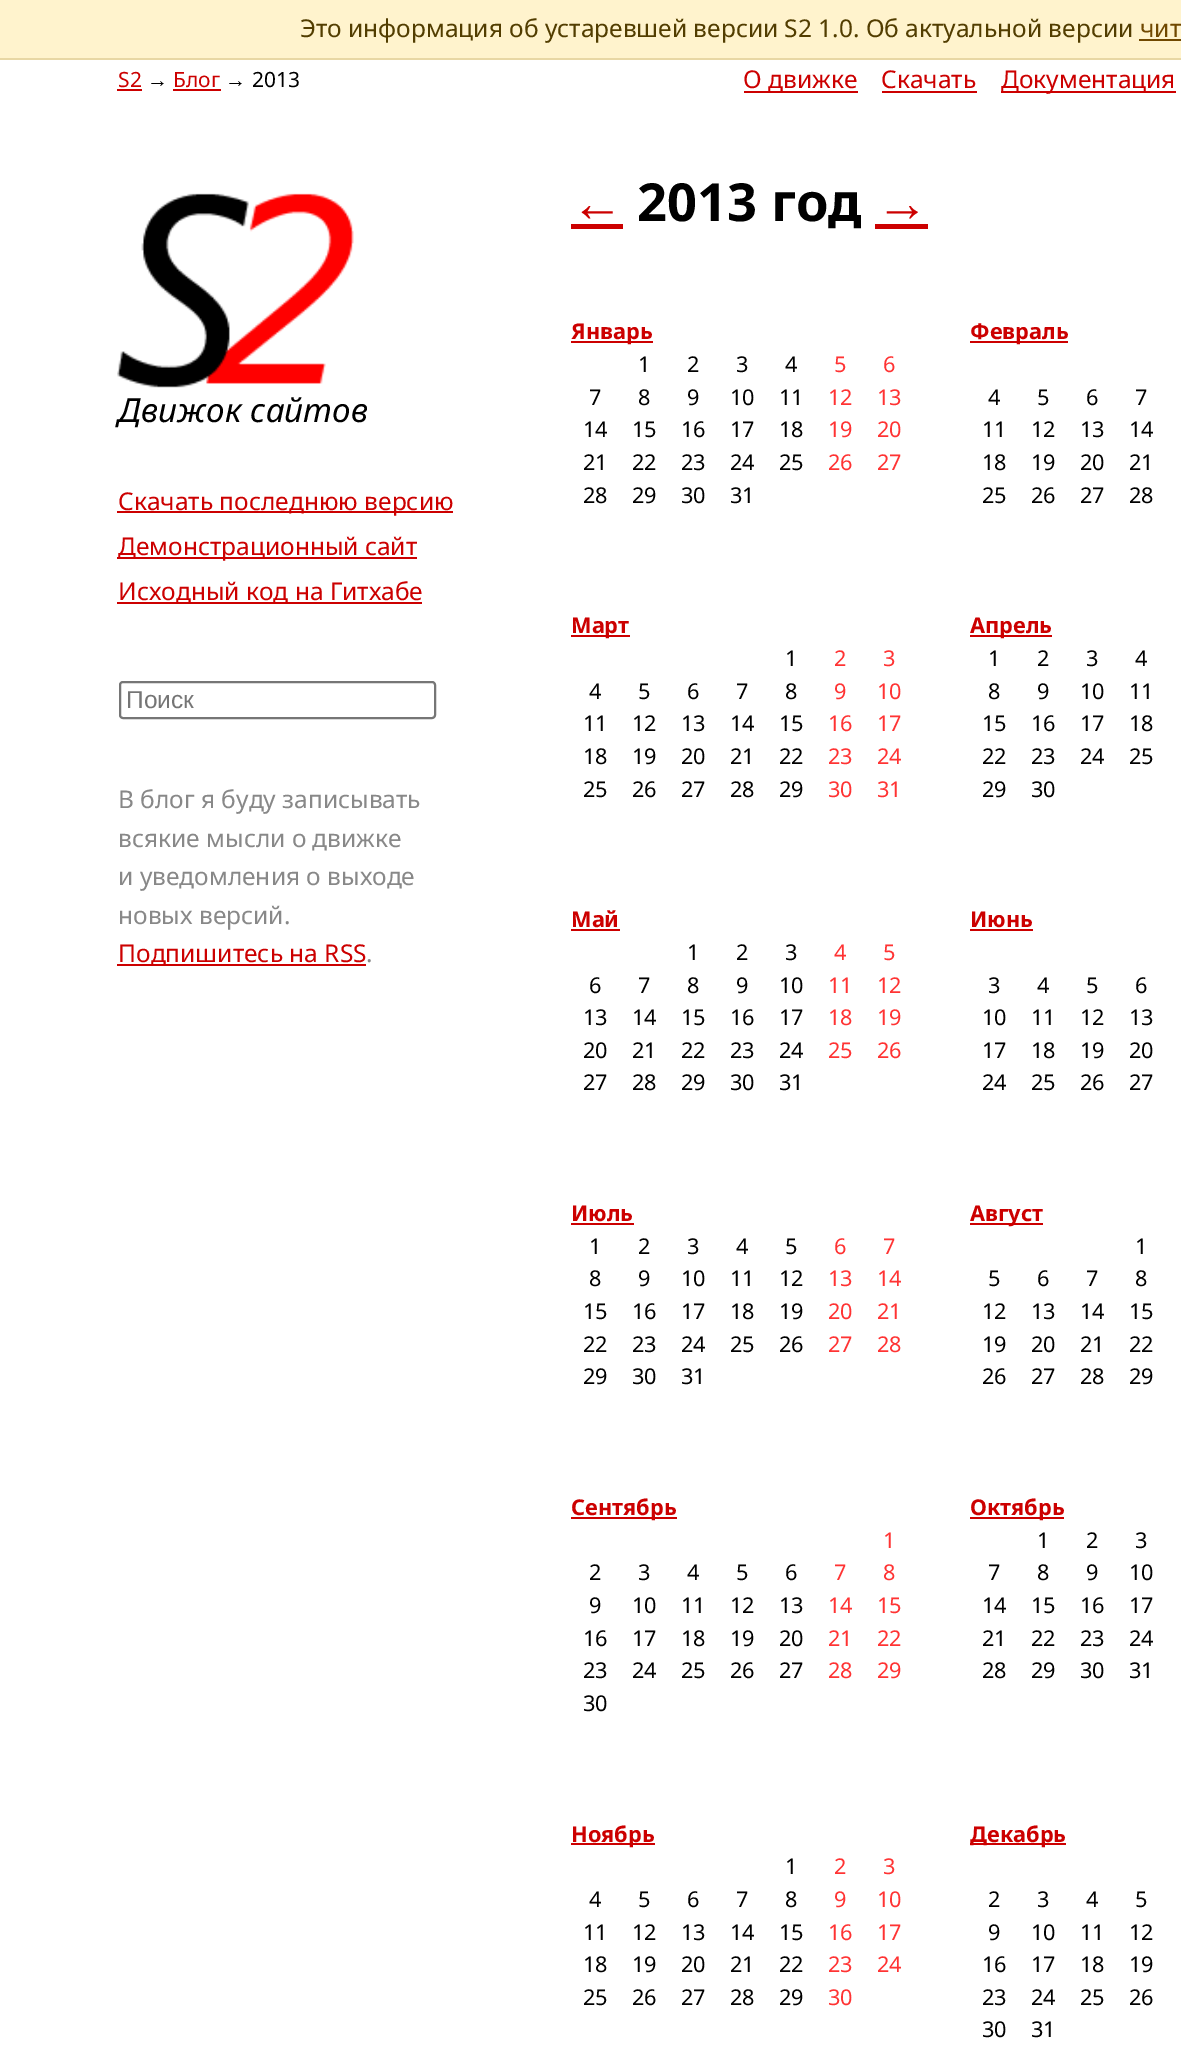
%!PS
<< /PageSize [1181 2059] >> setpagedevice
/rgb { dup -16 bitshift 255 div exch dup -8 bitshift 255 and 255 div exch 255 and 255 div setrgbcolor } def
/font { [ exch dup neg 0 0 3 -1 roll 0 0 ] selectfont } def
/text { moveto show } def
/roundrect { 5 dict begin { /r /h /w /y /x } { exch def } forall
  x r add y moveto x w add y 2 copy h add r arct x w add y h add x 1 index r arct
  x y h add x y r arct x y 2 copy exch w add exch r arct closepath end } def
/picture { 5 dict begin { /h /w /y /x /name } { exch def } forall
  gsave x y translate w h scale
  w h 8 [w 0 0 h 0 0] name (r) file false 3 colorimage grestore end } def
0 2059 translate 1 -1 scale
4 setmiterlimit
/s1 { /NotoSans-Regular 24.5 font 16#523D00 rgb } def
/s2 { /NotoSans-Regular 24.5 font 16#704800 rgb } def
/s3 { /NotoSans-Regular 21 font 16#CC0000 rgb } def
/s4 { /LiberationSans-Regular 21 font 16#000000 rgb } def
/s5 { /NotoSans-Regular 21 font 16#000000 rgb } def
/s6 { /NotoSans-Regular 24.5 font 16#CC0000 rgb } def
/s7 { /NotoSans-Italic 33.25 font 16#000000 rgb } def
/s8 { /LiberationSans-Regular 24.5 font 16#757575 rgb } def
/s9 { /NotoSans-Regular 24.5 font 16#888888 rgb } def
/s10 { /LiberationSans-Bold 52.5 font 16#CC0000 rgb } def
/s11 { /NotoSans-Bold 52.5 font 16#000000 rgb } def
/s12 { /NotoSans-Bold 21.75 font 16#CC0000 rgb } def
/s13 { /NotoSans-Regular 21.75 font 16#000000 rgb } def
/s14 { /NotoSans-Regular 21.75 font 16#FF3333 rgb } def
16#FFFFFF rgb
0 0 1181 2059 rectfill
16#FFF3CD rgb
0 0 1181 58 rectfill
16#E8D7A4 rgb
0 58 1181 2 rectfill
s1
(Это информация об устаревшей версии S2 1.0. Об актуальной версии) 300 37 text
s2
(чит) 1140 37 text
1139 39 42 2 rectfill
s3
(S2) 118 87 text
117 89 25 2 rectfill
s4
(→) 147 87 text
s3
(Блог) 173 87 text
173 89 48 2 rectfill
s4
(→) 225 87 text
s5
(2013) 252 87 text
16#CC0000 rgb
744 91 114 2 rectfill
s6
(О движке) 743 88 text
(Скачать) 881 88 text
882 91 95 2 rectfill
1001 91 175 2 rectfill
(Документация) 1001 88 text
(pic1.raw) 117 193 237 195 picture
s7
(Движок сайтов) 118 422 text
16#CC0000 rgb
117 511 336 2 rectfill
s6
(Скачать последнюю версию) 118 510 text
117 557 300 2 rectfill
(Демонстрационный сайт) 118 555 text
117 602 305 2 rectfill
(Исходный код на Гитхабе) 118 600 text
16#767676 rgb
2 setlinewidth
120 682 315 36 3 roundrect stroke
s8
(Поиск) 126 708 text
s9
(В блог я буду записывать) 118 808 text
(всякие мысли о движке) 118 847 text
(и уведомления о выходе) 118 885 text
(новых версий.) 118 924 text
16#CC0000 rgb
117 964 249 2 rectfill
(Подпишитесь на RSS) 118 962 text
s9
(.) 366 962 text
s10
(←) 571 221 text
571 224 52 5 rectfill
s11
(2013 год) 637 221 text
s10
(→) 876 221 text
875 224 53 5 rectfill
571 341 82 2 rectfill
s12
(Январь) 571 339 text
s13
(1) 638 372 text
(2) 687 372 text
(3) 736 372 text
(4) 785 372 text
s14
(5) 834 372 text
(6) 883 372 text
s13
(7) 589 405 text
(8) 638 405 text
(9) 687 405 text
(10) 730 405 text
(11) 779 405 text
s14
(12) 828 405 text
(13) 877 405 text
s13
(14) 583 437 text
(15) 632 437 text
(16) 681 437 text
(17) 730 437 text
(18) 779 437 text
s14
(19) 828 437 text
(20) 877 437 text
s13
(21) 583 470 text
(22) 632 470 text
(23) 681 470 text
(24) 730 470 text
(25) 779 470 text
s14
(26) 828 470 text
(27) 877 470 text
s13
(28) 583 503 text
(29) 632 503 text
(30) 681 503 text
(31) 730 503 text
16#CC0000 rgb
970 341 98 2 rectfill
s12
(Февраль) 970 339 text
s13
(4) 988 405 text
(5) 1037 405 text
(6) 1086 405 text
(7) 1135 405 text
(11) 982 437 text
(12) 1031 437 text
(13) 1080 437 text
(14) 1129 437 text
(18) 982 470 text
(19) 1031 470 text
(20) 1080 470 text
(21) 1129 470 text
(25) 982 503 text
(26) 1031 503 text
(27) 1080 503 text
(28) 1129 503 text
16#CC0000 rgb
571 635 59 2 rectfill
s12
(Март) 571 633 text
s13
(1) 785 666 text
s14
(2) 834 666 text
(3) 883 666 text
s13
(4) 589 699 text
(5) 638 699 text
(6) 687 699 text
(7) 736 699 text
(8) 785 699 text
s14
(9) 834 699 text
(10) 877 699 text
s13
(11) 583 731 text
(12) 632 731 text
(13) 681 731 text
(14) 730 731 text
(15) 779 731 text
s14
(16) 828 731 text
(17) 877 731 text
s13
(18) 583 764 text
(19) 632 764 text
(20) 681 764 text
(21) 730 764 text
(22) 779 764 text
s14
(23) 828 764 text
(24) 877 764 text
s13
(25) 583 797 text
(26) 632 797 text
(27) 681 797 text
(28) 730 797 text
(29) 779 797 text
s14
(30) 828 797 text
(31) 877 797 text
16#CC0000 rgb
970 635 82 2 rectfill
s12
(Апрель) 970 633 text
s13
(1) 988 666 text
(2) 1037 666 text
(3) 1086 666 text
(4) 1135 666 text
(8) 988 699 text
(9) 1037 699 text
(10) 1080 699 text
(11) 1129 699 text
(15) 982 731 text
(16) 1031 731 text
(17) 1080 731 text
(18) 1129 731 text
(22) 982 764 text
(23) 1031 764 text
(24) 1080 764 text
(25) 1129 764 text
(29) 982 797 text
(30) 1031 797 text
s12
(Май) 571 927 text
571 929 49 2 rectfill
s13
(1) 687 960 text
(2) 736 960 text
(3) 785 960 text
s14
(4) 834 960 text
(5) 883 960 text
s13
(6) 589 993 text
(7) 638 993 text
(8) 687 993 text
(9) 736 993 text
(10) 779 993 text
s14
(11) 828 993 text
(12) 877 993 text
s13
(13) 583 1025 text
(14) 632 1025 text
(15) 681 1025 text
(16) 730 1025 text
(17) 779 1025 text
s14
(18) 828 1025 text
(19) 877 1025 text
s13
(20) 583 1058 text
(21) 632 1058 text
(22) 681 1058 text
(23) 730 1058 text
(24) 779 1058 text
s14
(25) 828 1058 text
(26) 877 1058 text
s13
(27) 583 1090 text
(28) 632 1090 text
(29) 681 1090 text
(30) 730 1090 text
(31) 779 1090 text
s12
(Июнь) 970 927 text
970 929 63 2 rectfill
s13
(3) 988 993 text
(4) 1037 993 text
(5) 1086 993 text
(6) 1135 993 text
(10) 982 1025 text
(11) 1031 1025 text
(12) 1080 1025 text
(13) 1129 1025 text
(17) 982 1058 text
(18) 1031 1058 text
(19) 1080 1058 text
(20) 1129 1058 text
(24) 982 1090 text
(25) 1031 1090 text
(26) 1080 1090 text
(27) 1129 1090 text
s12
(Июль) 571 1221 text
571 1223 63 2 rectfill
s13
(1) 589 1254 text
(2) 638 1254 text
(3) 687 1254 text
(4) 736 1254 text
(5) 785 1254 text
s14
(6) 834 1254 text
(7) 883 1254 text
s13
(8) 589 1286 text
(9) 638 1286 text
(10) 681 1286 text
(11) 730 1286 text
(12) 779 1286 text
s14
(13) 828 1286 text
(14) 877 1286 text
s13
(15) 583 1319 text
(16) 632 1319 text
(17) 681 1319 text
(18) 730 1319 text
(19) 779 1319 text
s14
(20) 828 1319 text
(21) 877 1319 text
s13
(22) 583 1352 text
(23) 632 1352 text
(24) 681 1352 text
(25) 730 1352 text
(26) 779 1352 text
s14
(27) 828 1352 text
(28) 877 1352 text
s13
(29) 583 1384 text
(30) 632 1384 text
(31) 681 1384 text
16#CC0000 rgb
970 1223 73 2 rectfill
s12
(Август) 970 1221 text
s13
(1) 1135 1254 text
(5) 988 1286 text
(6) 1037 1286 text
(7) 1086 1286 text
(8) 1135 1286 text
(12) 982 1319 text
(13) 1031 1319 text
(14) 1080 1319 text
(15) 1129 1319 text
(19) 982 1352 text
(20) 1031 1352 text
(21) 1080 1352 text
(22) 1129 1352 text
(26) 982 1384 text
(27) 1031 1384 text
(28) 1080 1384 text
(29) 1129 1384 text
16#CC0000 rgb
571 1517 106 2 rectfill
s12
(Сентябрь) 571 1515 text
s14
(1) 883 1548 text
s13
(2) 589 1580 text
(3) 638 1580 text
(4) 687 1580 text
(5) 736 1580 text
(6) 785 1580 text
s14
(7) 834 1580 text
(8) 883 1580 text
s13
(9) 589 1613 text
(10) 632 1613 text
(11) 681 1613 text
(12) 730 1613 text
(13) 779 1613 text
s14
(14) 828 1613 text
(15) 877 1613 text
s13
(16) 583 1646 text
(17) 632 1646 text
(18) 681 1646 text
(19) 730 1646 text
(20) 779 1646 text
s14
(21) 828 1646 text
(22) 877 1646 text
s13
(23) 583 1678 text
(24) 632 1678 text
(25) 681 1678 text
(26) 730 1678 text
(27) 779 1678 text
s14
(28) 828 1678 text
(29) 877 1678 text
s13
(30) 583 1711 text
16#CC0000 rgb
970 1517 94 2 rectfill
s12
(Октябрь) 970 1515 text
s13
(1) 1037 1548 text
(2) 1086 1548 text
(3) 1135 1548 text
(7) 988 1580 text
(8) 1037 1580 text
(9) 1086 1580 text
(10) 1129 1580 text
(14) 982 1613 text
(15) 1031 1613 text
(16) 1080 1613 text
(17) 1129 1613 text
(21) 982 1646 text
(22) 1031 1646 text
(23) 1080 1646 text
(24) 1129 1646 text
(28) 982 1678 text
(29) 1031 1678 text
(30) 1080 1678 text
(31) 1129 1678 text
16#CC0000 rgb
571 1843 84 2 rectfill
s12
(Ноябрь) 571 1842 text
s13
(1) 785 1874 text
s14
(2) 834 1874 text
(3) 883 1874 text
s13
(4) 589 1907 text
(5) 638 1907 text
(6) 687 1907 text
(7) 736 1907 text
(8) 785 1907 text
s14
(9) 834 1907 text
(10) 877 1907 text
s13
(11) 583 1940 text
(12) 632 1940 text
(13) 681 1940 text
(14) 730 1940 text
(15) 779 1940 text
s14
(16) 828 1940 text
(17) 877 1940 text
s13
(18) 583 1972 text
(19) 632 1972 text
(20) 681 1972 text
(21) 730 1972 text
(22) 779 1972 text
s14
(23) 828 1972 text
(24) 877 1972 text
s13
(25) 583 2005 text
(26) 632 2005 text
(27) 681 2005 text
(28) 730 2005 text
(29) 779 2005 text
s14
(30) 828 2005 text
16#CC0000 rgb
970 1843 96 2 rectfill
s12
(Декабрь) 970 1842 text
s13
(2) 988 1907 text
(3) 1037 1907 text
(4) 1086 1907 text
(5) 1135 1907 text
(9) 988 1940 text
(10) 1031 1940 text
(11) 1080 1940 text
(12) 1129 1940 text
(16) 982 1972 text
(17) 1031 1972 text
(18) 1080 1972 text
(19) 1129 1972 text
(23) 982 2005 text
(24) 1031 2005 text
(25) 1080 2005 text
(26) 1129 2005 text
(30) 982 2037 text
(31) 1031 2037 text
showpage
